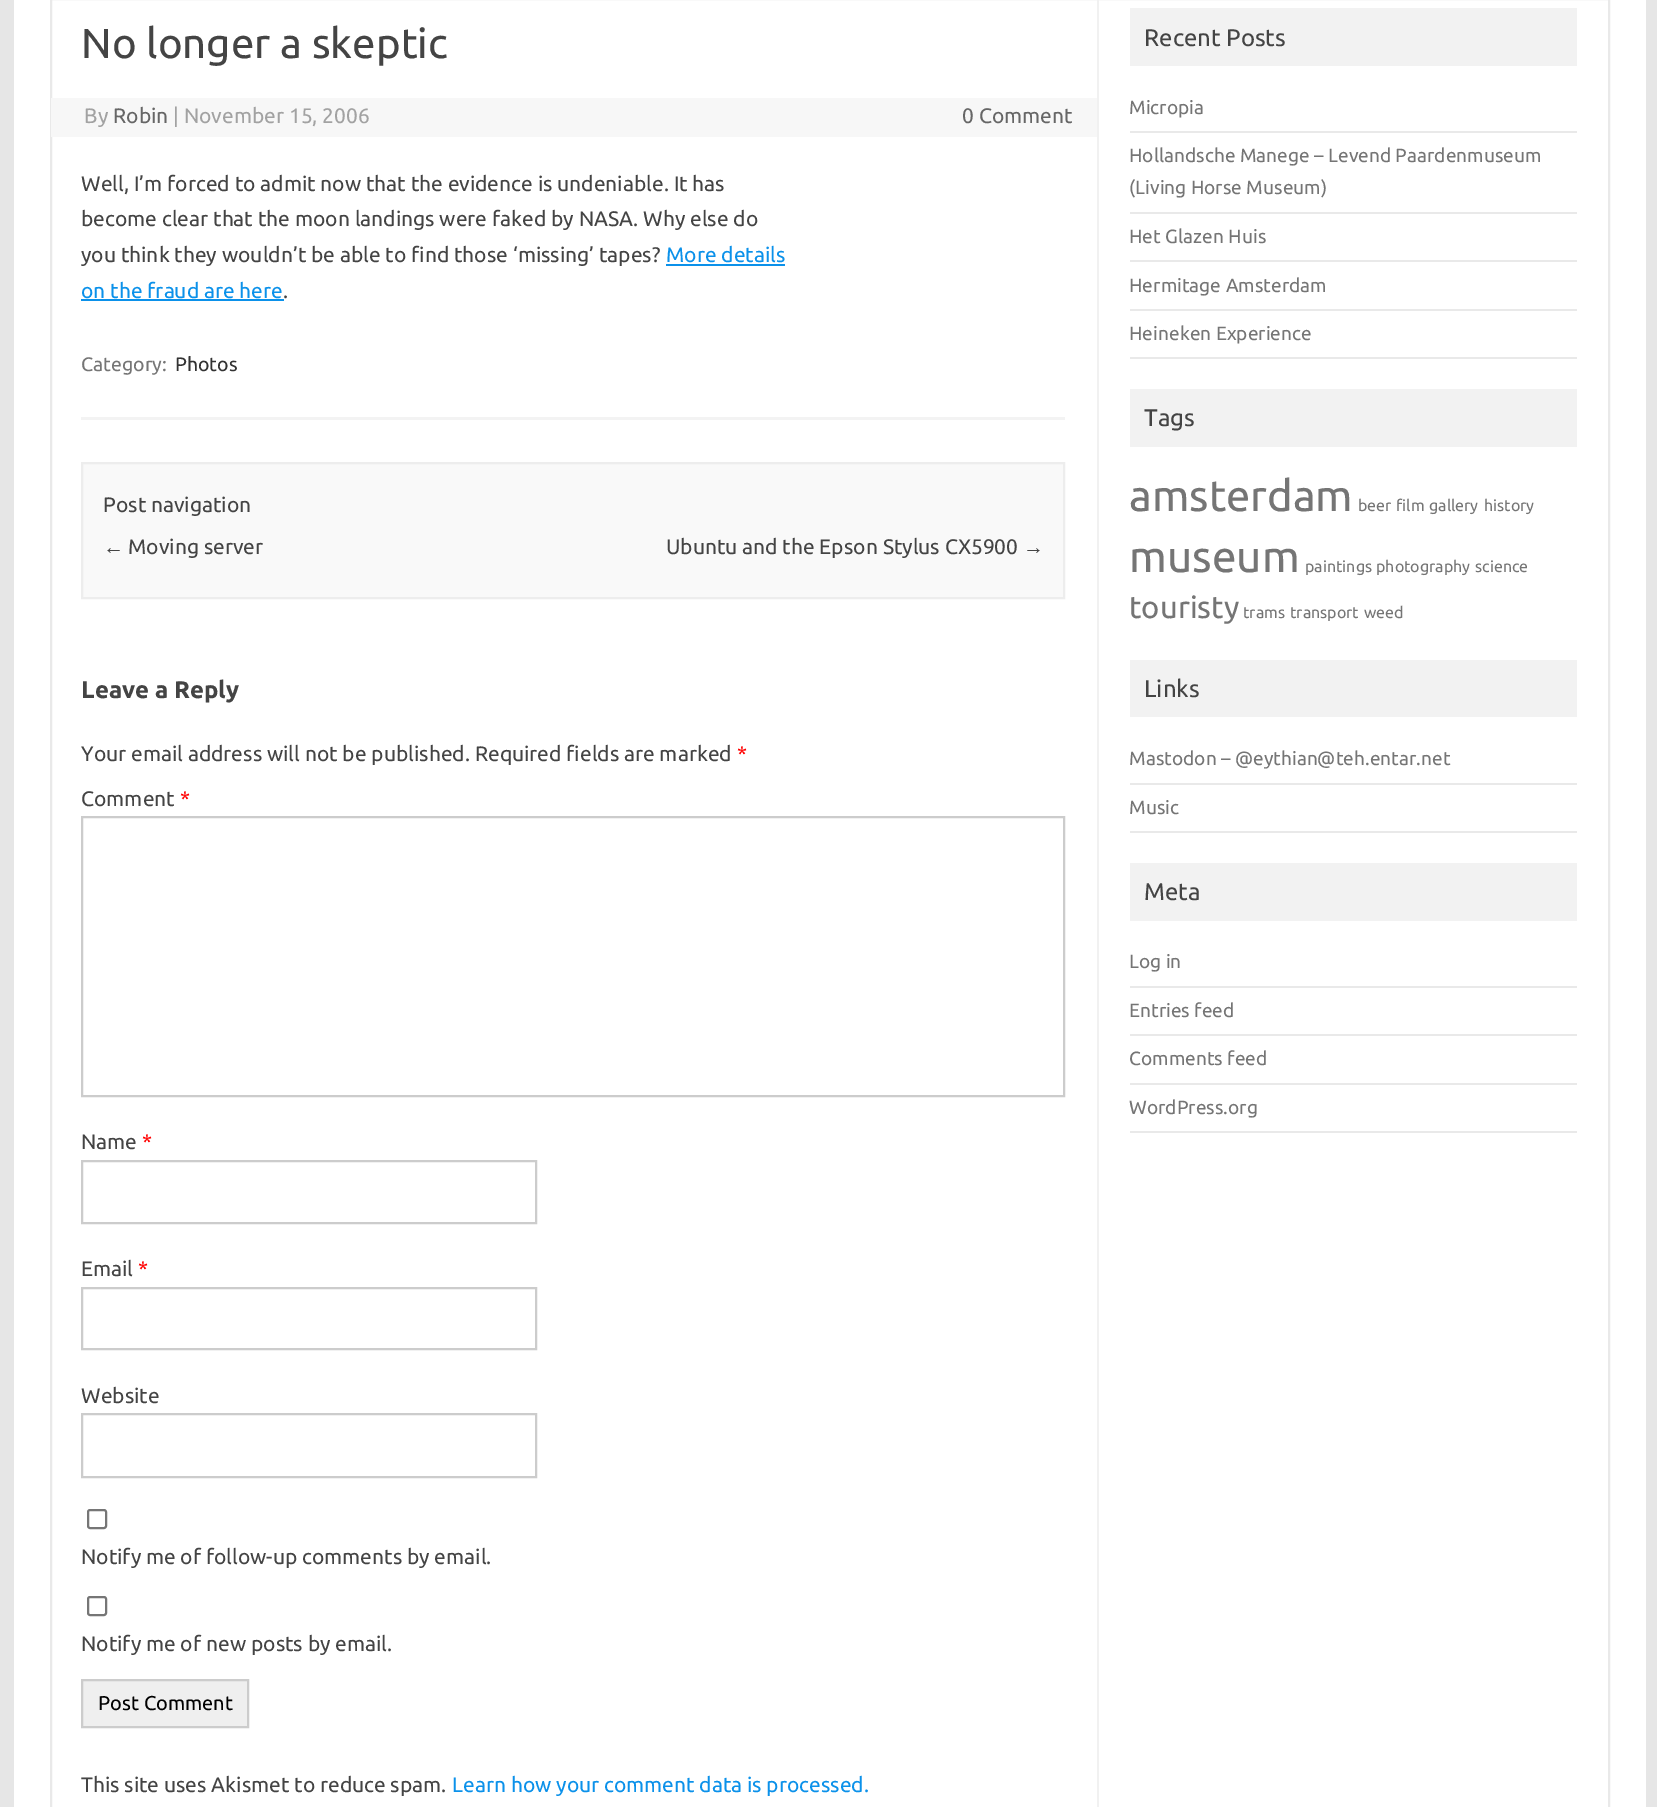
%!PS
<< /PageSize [1657 1807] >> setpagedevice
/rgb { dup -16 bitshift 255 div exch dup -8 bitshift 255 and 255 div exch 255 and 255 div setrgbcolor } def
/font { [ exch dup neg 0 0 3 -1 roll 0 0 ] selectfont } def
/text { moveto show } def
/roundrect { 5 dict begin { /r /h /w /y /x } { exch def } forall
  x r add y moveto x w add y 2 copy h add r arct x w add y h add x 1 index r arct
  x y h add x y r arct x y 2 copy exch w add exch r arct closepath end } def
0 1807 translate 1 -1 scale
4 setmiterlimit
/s1 { /Ubuntu-Regular 42 font 16#444444 rgb } def
/s2 { /Ubuntu-Regular 21 font 16#A2A2A2 rgb } def
/s3 { /Ubuntu-Regular 21 font 16#666666 rgb } def
/s4 { /Ubuntu-Regular 21 font 16#444444 rgb } def
/s5 { /Ubuntu-Regular 21 font 16#0B91EA rgb } def
/s6 { /Ubuntu-Regular 19.5 font 16#757575 rgb } def
/s7 { /Ubuntu-Regular 19.5 font 16#333333 rgb } def
/s8 { /LiberationSans-Regular 21 font 16#444444 rgb } def
/s9 { /Ubuntu-Bold 24 font 16#444444 rgb } def
/s10 { /Ubuntu-Regular 21 font 16#FF0000 rgb } def
/s11 { /Ubuntu-Regular 20 font 16#000000 rgb } def
/s12 { /Ubuntu-Regular 24 font 16#444444 rgb } def
/s13 { /Ubuntu-Regular 19.1 font 16#757575 rgb } def
/s14 { /Ubuntu-Regular 43.5 font 16#757575 rgb } def
/s15 { /Ubuntu-Regular 16 font 16#757575 rgb } def
/s16 { /Ubuntu-Regular 44 font 16#757575 rgb } def
/s17 { /Ubuntu-Regular 31 font 16#757575 rgb } def
16#E6E6E6 rgb
0 0 1657 1807 rectfill
16#FFFFFF rgb
14 0 1632 1807 rectfill
16#E9E9E9 rgb
2 setlinewidth
51 -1 1558 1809 rectstroke
16#F1F1F1 rgb
1097 0 2 1807 rectfill
16#F3F3F3 rgb
81 417 984 3 rectfill
s1
(No longer a skeptic) 81 58 text
16#F7F7F7 rgb
51 98 1046 39 rectfill
s2
(By) 84 123 text
s3
(Robin) 113 123 text
s2
(| November 15, 2006) 173 123 text
s3
(0 Comment) 962 123 text
s4
(Well, I’m forced to admit now that the evidence is undeniable. It has) 81 191 text
(become clear that the moon landings were faked by NASA. Why else do) 81 226 text
(you think they wouldn’t be able to find those ‘missing’ tapes?) 81 262 text
s5
(More details) 666 262 text
666 264 119 2 rectfill
(on the fraud are here) 81 298 text
81 299 203 2 rectfill
s4
(.) 283 298 text
s6
(Category:) 81 371 text
s7
(Photos) 175 371 text
16#F9F9F9 rgb
82 463 moveto 1064 463 lineto 1064 598 lineto 82 598 lineto closepath gsave fill grestore
16#EDEDED rgb
stroke
s4
(Post navigation) 103 512 text
s8
(←) 103 554 text
s4
(Moving server) 128 554 text
(Ubuntu and the Epson Stylus CX5900) 666 554 text
s8
(→) 1023 554 text
s9
(Leave a Reply) 81 698 text
s4
(Your email address will not be published. Required fields are marked) 81 761 text
s10
(*) 737 761 text
s4
(Comment) 81 806 text
s10
(*) 180 806 text
16#CCCCCC rgb
82 817 982 279 rectstroke
s4
(Name) 81 1149 text
s10
(*) 142 1149 text
16#CCCCCC rgb
82 1161 454 62 rectstroke
s4
(Email) 81 1276 text
s10
(*) 138 1276 text
16#CCCCCC rgb
82 1288 454 61 rectstroke
s4
(Website) 81 1403 text
16#CCCCCC rgb
82 1414 454 63 rectstroke
16#767676 rgb
88 1510 18 18 2 roundrect stroke
s4
(Notify me of follow-up comments by email.) 81 1564 text
16#767676 rgb
88 1597 18 18 2 roundrect stroke
s4
(Notify me of new posts by email.) 81 1651 text
16#EFEFEF rgb
82 1680 moveto 248 1680 lineto 248 1727 lineto 82 1727 lineto closepath gsave fill grestore
16#CCCCCC rgb
stroke
s11
(Post Comment) 98 1710 text
s4
(This site uses Akismet to reduce spam.) 81 1792 text
s5
(Learn how your comment data is processed.) 452 1792 text
16#F2F2F2 rgb
1130 8 447 58 rectfill
s12
(Recent Posts) 1144 46 text
16#E9E9E9 rgb
1130 131 447 2 rectfill
s13
(Micropia) 1129 114 text
16#E9E9E9 rgb
1130 212 447 2 rectfill
s13
(Hollandsche Manege – Levend Paardenmuseum) 1129 162 text
(\(Living Horse Museum\)) 1129 194 text
16#E9E9E9 rgb
1130 260 447 2 rectfill
s13
(Het Glazen Huis) 1129 243 text
16#E9E9E9 rgb
1130 309 447 2 rectfill
s13
(Hermitage Amsterdam) 1129 292 text
16#E9E9E9 rgb
1130 357 447 2 rectfill
s13
(Heineken Experience) 1129 340 text
16#F2F2F2 rgb
1130 389 447 58 rectfill
s12
(Tags) 1144 426 text
s14
(amsterdam) 1129 511 text
s15
(beer) 1358 511 text
(film) 1396 511 text
(gallery) 1429 511 text
(history) 1484 511 text
s16
(museum) 1129 572 text
s15
(paintings) 1305 572 text
(photography) 1376 572 text
(science) 1475 572 text
s17
(touristy) 1129 618 text
s15
(trams) 1243 618 text
(transport) 1290 618 text
(weed) 1364 618 text
16#F2F2F2 rgb
1130 660 447 57 rectfill
s12
(Links) 1144 697 text
16#E9E9E9 rgb
1130 783 447 2 rectfill
s13
(Mastodon – @eythian@teh.entar.net) 1129 765 text
16#E9E9E9 rgb
1130 831 447 2 rectfill
s13
(Music) 1129 814 text
16#F2F2F2 rgb
1130 863 447 58 rectfill
s12
(Meta) 1144 900 text
16#E9E9E9 rgb
1130 986 447 2 rectfill
s13
(Log in) 1129 968 text
16#E9E9E9 rgb
1130 1034 447 2 rectfill
s13
(Entries feed) 1129 1017 text
16#E9E9E9 rgb
1130 1083 447 2 rectfill
s13
(Comments feed) 1129 1065 text
16#E9E9E9 rgb
1130 1131 447 2 rectfill
s13
(WordPress.org) 1129 1114 text
showpage
